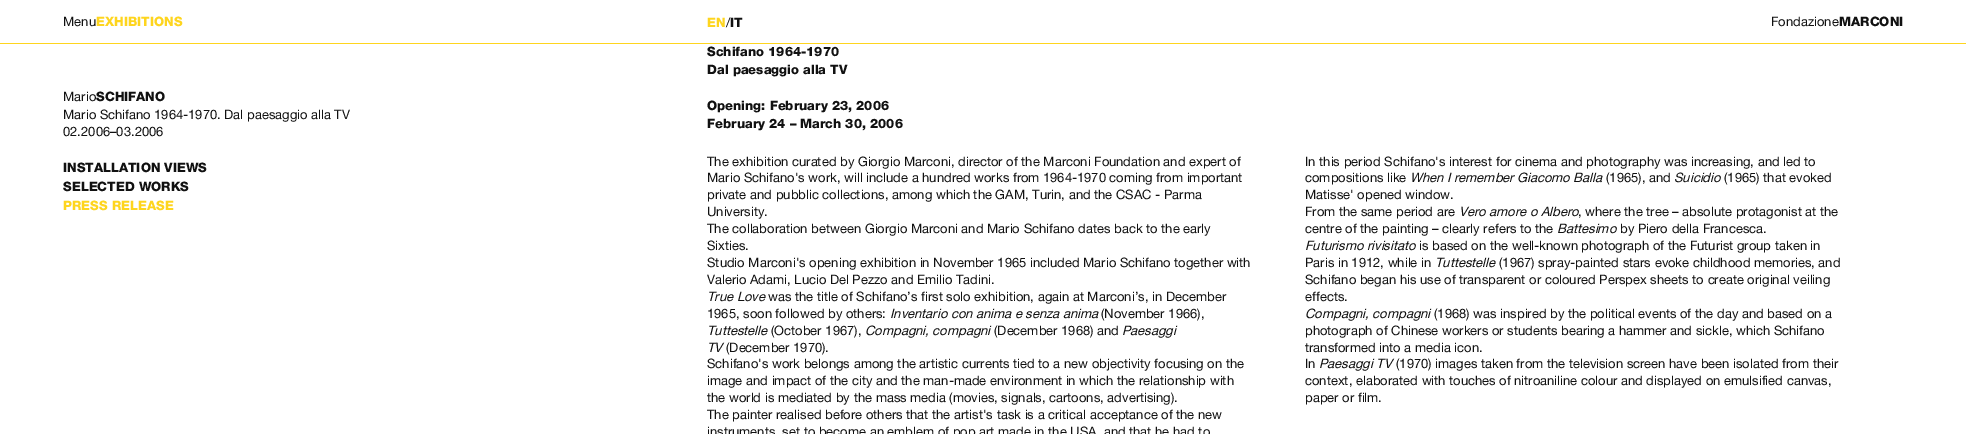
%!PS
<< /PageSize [1966 434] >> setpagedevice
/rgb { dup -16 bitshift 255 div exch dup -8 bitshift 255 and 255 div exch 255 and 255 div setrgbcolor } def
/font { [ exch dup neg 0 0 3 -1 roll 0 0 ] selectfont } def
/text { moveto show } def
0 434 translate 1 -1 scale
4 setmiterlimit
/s1 { /HelveticaNeue-Regular 13 font 16#111111 rgb } def
/s2 { /HelveticaNeue-Black 13 font 16#FED51E rgb } def
/s3 { /HelveticaNeue-Black 13 font 16#111111 rgb } def
/s4 { /HelveticaNeue-Italic 13 font 16#111111 rgb } def
16#FFFFFF rgb
0 0 1966 434 rectfill
16#FED51E rgb
0 43 1966 1 rectfill
s1
(Menu) 63 26 text
s2
(EXHIBITIONS) 96 26 text
(EN) 707 27 text
s1
(/) 726 27 text
s3
(IT) 730 27 text
s1
(Fondazione) 1771 26 text
s3
(MARCONI) 1839 26 text
s1
(Mario) 63 101 text
s3
(SCHIFANO) 96 101 text
s1
(Mario Schifano 1964-1970. Dal paesaggio alla TV) 63 119 text
(02.2006–03.2006) 63 136 text
s3
(INSTALLATION VIEWS) 63 172 text
(SELECTED WORKS) 63 191 text
s2
(PRESS RELEASE) 63 210 text
s3
(Schifano 1964-1970) 707 56 text
(Dal paesaggio alla TV) 707 74 text
(Opening: February 23, 2006) 707 110 text
(February 24 – March 30, 2006) 707 128 text
s1
(The exhibition curated by Giorgio Marconi, director of the Marconi Foundation and expert of) 707 166 text
(Mario Schifano's work, will include a hundred works from 1964-1970 coming from important) 707 182 text
(private and pubblic collections, among which the GAM, Turin, and the CSAC - Parma) 707 199 text
(University.) 707 216 text
(The collaboration between Giorgio Marconi and Mario Schifano dates back to the early) 707 233 text
(Sixties.) 707 250 text
(Studio Marconi's opening exhibition in November 1965 included Mario Schifano together with) 707 267 text
(Valerio Adami, Lucio Del Pezzo and Emilio Tadini.) 707 284 text
s4
(True Love) 707 301 text
s1
(was the title of Schifano’s first solo exhibition, again at Marconi’s, in December) 768 301 text
(1965, soon followed by others:) 707 318 text
s4
(Inventario con anima e senza anima) 890 318 text
s1
(\(November 1966\),) 1101 318 text
s4
(Tuttestelle) 707 335 text
s1
(\(October 1967\),) 771 335 text
s4
(Compagni, compagni) 865 335 text
s1
(\(December 1968\) and) 994 335 text
s4
(Paesaggi) 1122 335 text
(TV) 707 352 text
s1
(\(December 1970\).) 726 352 text
(Schifano's work belongs among the artistic currents tied to a new objectivity focusing on the) 707 368 text
(image and impact of the city and the man-made environment in which the relationship with) 707 385 text
(the world is mediated by the mass media \(movies, signals, cartoons, advertising\).) 707 402 text
(The painter realised before others that the artist's task is a critical acceptance of the new) 707 419 text
(instruments, set to become an emblem of pop art made in the USA, and that he had to) 707 436 text
(In this period Schifano's interest for cinema and photography was increasing, and led to) 1305 166 text
(compositions like) 1305 182 text
s4
(When I remember Giacomo Balla) 1410 182 text
s1
(\(1965\), and) 1606 182 text
s4
(Suicidio) 1674 182 text
s1
(\(1965\) that evoked) 1724 182 text
(Matisse' opened window.) 1305 199 text
(From the same period are) 1305 216 text
s4
(Vero amore o Albero) 1459 216 text
s1
(, where the tree – absolute protagonist at the) 1578 216 text
(centre of the painting – clearly refers to the) 1305 233 text
s4
(Battesimo) 1557 233 text
s1
(by Piero della Francesca.) 1620 233 text
s4
(Futurismo rivisitato) 1305 250 text
s1
(is based on the well-known photograph of the Futurist group taken in) 1419 250 text
(Paris in 1912, while in) 1305 267 text
s4
(Tuttestelle) 1435 267 text
s1
(\(1967\) spray-painted stars evoke childhood memories, and) 1499 267 text
(Schifano began his use of transparent or coloured Perspex sheets to create original veiling) 1305 284 text
(effects.) 1305 301 text
s4
(Compagni, compagni) 1305 318 text
s1
(\(1968\) was inspired by the political events of the day and based on a) 1434 318 text
(photograph of Chinese workers or students bearing a hammer and sickle, which Schifano) 1305 335 text
(transformed into a media icon.) 1305 352 text
(In) 1305 368 text
s4
(Paesaggi TV) 1319 368 text
s1
(\(1970\) images taken from the television screen have been isolated from their) 1396 368 text
(context, elaborated with touches of nitroaniline colour and displayed on emulsified canvas,) 1305 385 text
(paper or film.) 1305 402 text
showpage
